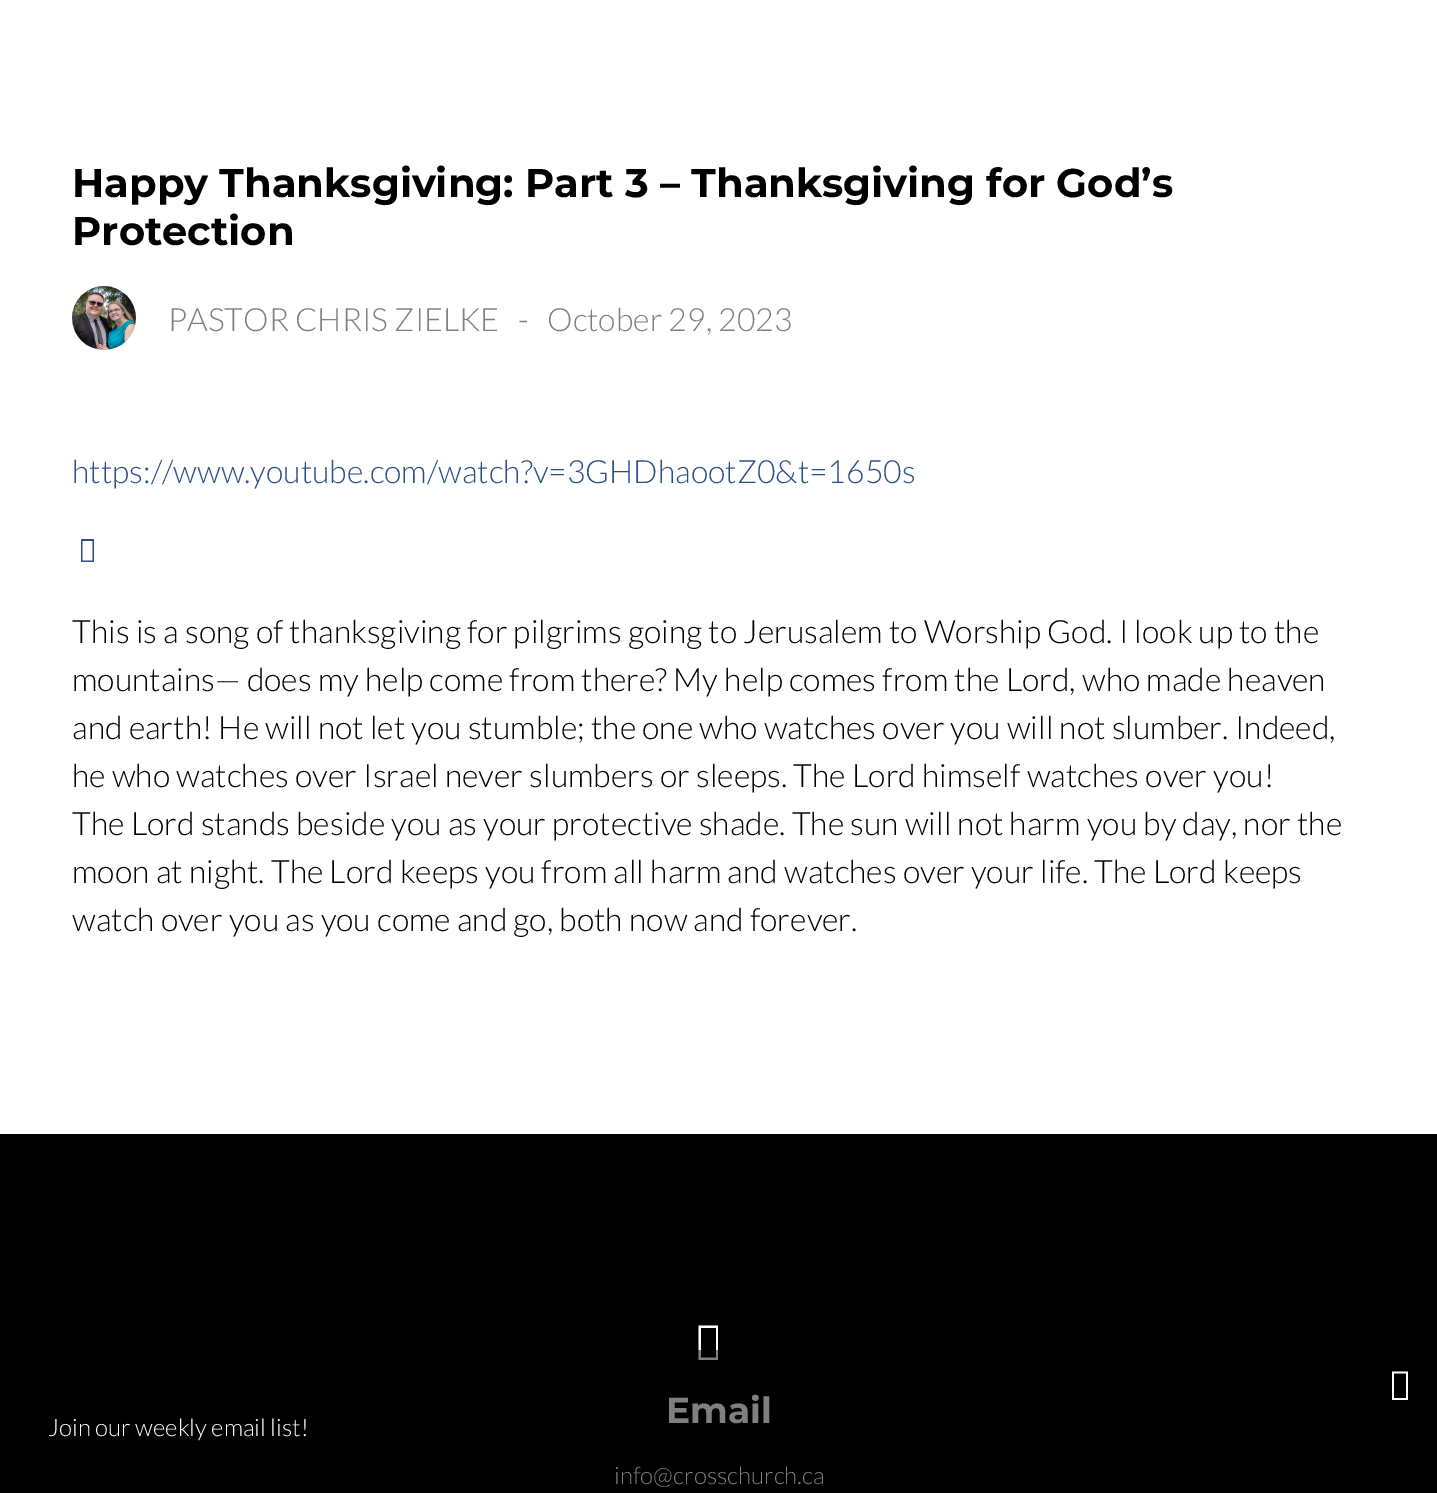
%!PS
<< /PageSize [1437 1493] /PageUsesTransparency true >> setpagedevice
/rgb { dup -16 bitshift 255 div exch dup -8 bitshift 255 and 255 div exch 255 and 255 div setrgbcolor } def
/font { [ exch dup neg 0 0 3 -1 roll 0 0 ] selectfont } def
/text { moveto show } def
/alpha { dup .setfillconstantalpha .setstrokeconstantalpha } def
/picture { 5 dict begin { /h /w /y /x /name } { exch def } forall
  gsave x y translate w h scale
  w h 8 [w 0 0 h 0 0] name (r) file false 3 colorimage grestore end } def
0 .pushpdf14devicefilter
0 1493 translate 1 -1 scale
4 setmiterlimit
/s1 { /Montserrat-Bold 40 font 16#000000 rgb } def
/s2 { /Lato-Light 32 font 16#808080 rgb } def
/s3 { /Lato-Light 32 font 16#2B4E88 rgb } def
/s4 { /Lato-Light 32 font 16#000000 rgb } def
/s5 { /Montserrat-Bold 36 font 16#FFFFFF rgb } def
/s6 { /Lato-Light 24 font 16#FFFFFF rgb } def
16#FFFFFF rgb
0 0 1437 1493 rectfill
s1
(Happy Thanksgiving: Part 3 – Thanksgiving for God’s) 72 197 text
(Protection) 72 245 text
(pic1.raw) 72 286 64 64 picture
s2
(PASTOR CHRIS ZIELKE) 168 331 text
(-) 518 331 text
(October 29, 2023) 547 331 text
s3
(https://www.youtube.com/watch?v=3GHDhaootZ0&t=1650s) 72 483 text
81 562 moveto 81 539 lineto 94 539 lineto 94 562 lineto closepath 82.5 560.5 moveto 92.5 560.5 lineto 92.5 541 lineto 82.5 541 lineto closepath fill
s4
(This is a song of thanksgiving for pilgrims going to Jerusalem to Worship God. I look up to the) 72 643 text
(mountains— does my help come from there? My help comes from the Lord, who made heaven) 72 691 text
(and earth! He will not let you stumble; the one who watches over you will not slumber. Indeed,) 72 739 text
(he who watches over Israel never slumbers or sleeps. The Lord himself watches over you!) 72 787 text
(The Lord stands beside you as your protective shade. The sun will not harm you by day, nor the) 72 835 text
(moon at night. The Lord keeps you from all harm and watches over your life. The Lord keeps) 72 883 text
(watch over you as you come and go, both now and forever.) 72 931 text
0 1134 1437 359 rectfill
16#FFFFFF rgb
698.5 1360 moveto 698.5 1325.5 lineto 718 1325.5 lineto 718 1360 lineto closepath 701 1357.5 moveto 716 1357.5 lineto 716 1328 lineto 701 1328 lineto closepath fill
s5
(Email) 666 1423 text
s6
(info@crosschurch.ca) 614 1484 text
0.5 alpha
16#000000 rgb
615 1350 208 137 rectfill
1 alpha
16#FFFFFF rgb
1392 1400 moveto 1392 1371.5 lineto 1408 1371.5 lineto 1408 1400 lineto closepath 1394 1398 moveto 1406 1398 lineto 1406 1373.5 lineto 1394 1373.5 lineto closepath fill
(Join our weekly email list!) 48 1436 text
.poppdf14devicefilter showpage
